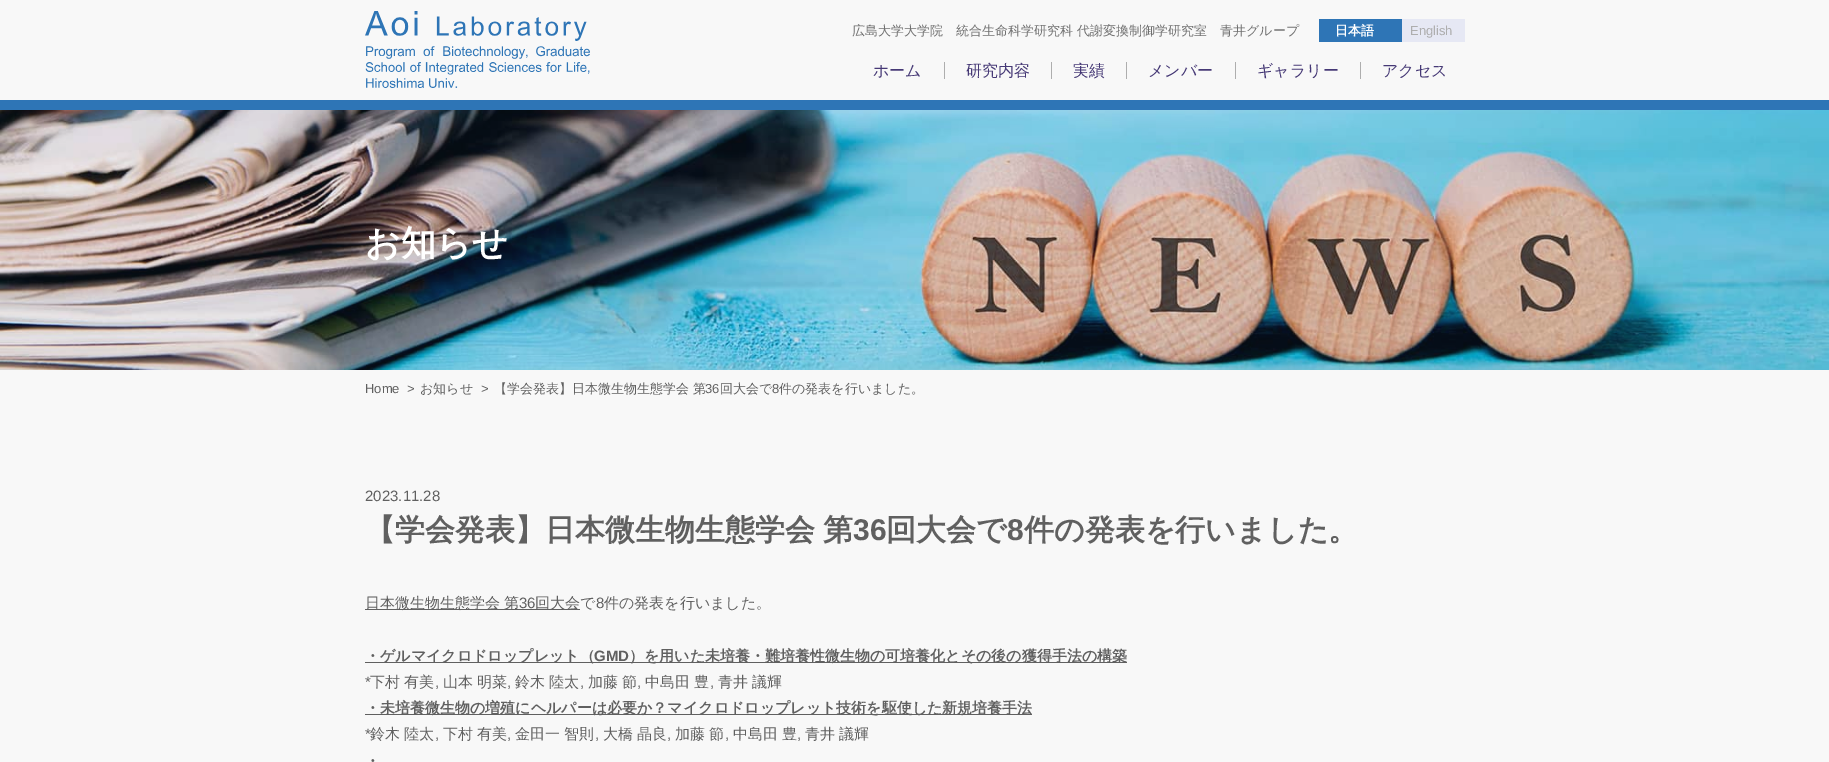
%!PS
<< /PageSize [1829 762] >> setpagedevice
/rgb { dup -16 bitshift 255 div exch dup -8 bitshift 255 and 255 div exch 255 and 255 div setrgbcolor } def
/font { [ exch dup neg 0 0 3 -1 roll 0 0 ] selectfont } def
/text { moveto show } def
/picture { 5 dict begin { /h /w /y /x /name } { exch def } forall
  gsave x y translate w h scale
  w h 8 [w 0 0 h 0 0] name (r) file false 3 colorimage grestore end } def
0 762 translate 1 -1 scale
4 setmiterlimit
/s1 { /WenQuanYiZenHei-Medium 13 font 16#707070 rgb } def
/s2 { /WenQuanYiZenHei-Bold 13 font 16#FFFFFF rgb } def
/s3 { /LiberationSans-Regular 13 font 16#AEAEAE rgb } def
/s4 { /WenQuanYiZenHei-Medium 16 font 16#463976 rgb } def
/s5 { /WenQuanYiZenHei-Bold 35 font 16#FFFFFF rgb } def
/s6 { /LiberationSans-Regular 13 font 16#606060 rgb } def
/s7 { /WenQuanYiZenHei-Medium 13 font 16#606060 rgb } def
/s8 { /LiberationSans-Regular 15 font 16#606060 rgb } def
/s9 { /LiberationSans-Bold 30 font 16#606060 rgb } def
/s10 { /WenQuanYiZenHei-Bold 30 font 16#606060 rgb } def
/s11 { /WenQuanYiZenHei-Medium 15 font 16#606060 rgb } def
/s12 { /WenQuanYiZenHei-Bold 15 font 16#606060 rgb } def
/s13 { /LiberationSans-Bold 15 font 16#606060 rgb } def
16#F8F8F8 rgb
0 0 1829 762 rectfill
16#2E75B6 rgb
0 100 1829 10 rectfill
(pic1.raw) 365 11 225 77 picture
s1
(広島大学大学院　統合生命科学研究科 代謝変換制御学研究室　青井グループ) 852 35 text
16#2E75B6 rgb
1319 19 83 23 rectfill
s2
(日本語) 1335 35 text
16#E6E8F4 rgb
1402 19 63 23 rectfill
s3
(English) 1410 35 text
s4
(ホーム) 873 76 text
16#AEAEAE rgb
944 62 1 17 rectfill
s4
(研究内容) 966 76 text
16#AEAEAE rgb
1051 62 1 17 rectfill
s4
(実績) 1073 76 text
16#AEAEAE rgb
1126 62 1 17 rectfill
s4
(メンバー) 1148 76 text
16#AEAEAE rgb
1235 62 1 17 rectfill
s4
(ギャラリー) 1257 76 text
16#AEAEAE rgb
1360 62 1 17 rectfill
s4
(アクセス) 1382 76 text
(pic2.raw) 0 110 1829 260 picture
s5
(お知らせ) 365 255 text
s6
(Home) 365 393 text
(>) 407 393 text
s7
(お知らせ) 420 393 text
s6
(>) 481 393 text
s7
(【学会発表】日本微生物生態学会 第) 494 393 text
s6
(36) 705 393 text
s7
(回大会で) 720 393 text
s6
(8) 772 393 text
s7
(件の発表を行いました。) 779 393 text
s8
(2023.11.28) 365 501 text
/WenQuanYiZenHei-Bold 30 font
365 540 moveto -1 0 32 (【学会発表】日本微生物生態学会 第) widthshow
s9
(36) 853 540 text
s10
(回大会で) 886 540 text
s9
(8) 1007 540 text
s10
(件の発表を行いました。) 1024 540 text
365 609 215 1 rectfill
s11
(日本微生物生態学会 第) 365 608 text
s8
(36) 519 608 text
s11
(回大会で) 535 608 text
s8
(8) 596 608 text
s11
(件の発表を行いました。) 604 608 text
365 662 762 1 rectfill
s12
(・ゲルマイクロドロップレット（) 365 661 text
s13
(GMD) 594 661 text
s12
(）を用いた未培養・難培養性微生物の可培養化とその後の獲得手法の構築) 629 661 text
s8
(*) 365 687 text
s11
(下村 有美) 370 687 text
(山本 明菜) 443 687 text
(鈴木 陸太) 515 687 text
(加藤 節) 588 687 text
(中島田 豊) 645 687 text
(青井 議輝) 718 687 text
s8
(,) 435 687 text
(,) 507 687 text
(,) 580 687 text
(,) 637 687 text
(,) 710 687 text
365 714 667 1 rectfill
s12
(・未培養微生物の増殖にヘルパーは必要か？マイクロドロップレット技術を駆使した新規培養手法) 365 713 text
s8
(*) 365 739 text
s11
(鈴木 陸太) 370 739 text
(下村 有美) 443 739 text
(金田一 智則) 515 739 text
(大橋 晶良) 603 739 text
(加藤 節) 675 739 text
(中島田 豊) 733 739 text
(青井 議輝) 805 739 text
s8
(,) 435 739 text
(,) 507 739 text
(,) 595 739 text
(,) 667 739 text
(,) 725 739 text
(,) 797 739 text
s12
(・) 365 766 text
showpage
